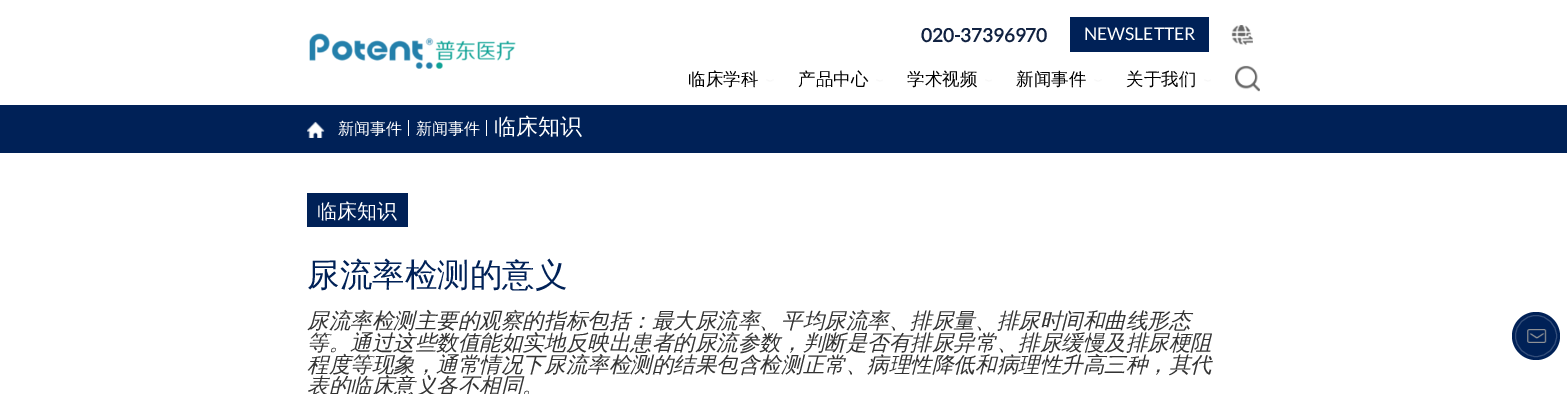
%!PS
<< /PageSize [1567 394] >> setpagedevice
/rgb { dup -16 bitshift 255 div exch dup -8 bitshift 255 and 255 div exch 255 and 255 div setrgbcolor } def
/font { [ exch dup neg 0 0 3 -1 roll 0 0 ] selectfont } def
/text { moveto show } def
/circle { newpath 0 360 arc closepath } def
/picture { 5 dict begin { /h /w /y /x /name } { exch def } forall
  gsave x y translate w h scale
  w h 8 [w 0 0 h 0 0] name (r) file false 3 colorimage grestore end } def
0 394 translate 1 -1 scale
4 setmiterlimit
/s1 { /Lato-Bold 18.75 font 16#112241 rgb } def
/s2 { /Lato-Regular 17.5 font 16#FFFFFF rgb } def
/s3 { /WenQuanYiZenHei-Medium 17.5 font 16#000000 rgb } def
/s4 { /WenQuanYiZenHei-Medium 16 font 16#FFFFFF rgb } def
/s5 { /WenQuanYiZenHei-Medium 22 font 16#FFFFFF rgb } def
/s6 { /WenQuanYiZenHei-Medium 20 font 16#FFFFFF rgb } def
/s7 { /WenQuanYiZenHei-Medium 32.5 font 16#002157 rgb } def
/s8 { /WenQuanYiZenHei-MediumItalic 21.55 font 16#333333 rgb } def
16#FFFFFF rgb
0 0 1567 394 rectfill
(pic1.raw) 309 33 207 36 picture
s1
(020-37396970) 921 42 text
16#002157 rgb
1070 17 139 35 rectfill
s2
(NEWSLETTER) 1084 40 text
(pic2.raw) 1231 25 22 20 picture
s3
(临床学科) 688 85 text
(pic3.raw) 766 79 8 3 picture
(产品中心) 798 85 text
(pic4.raw) 876 79 7 3 picture
(学术视频) 907 85 text
(pic4.raw) 985 79 7 3 picture
(新闻事件) 1016 85 text
(pic3.raw) 1094 79 8 3 picture
(关于我们) 1126 85 text
(pic5.raw) 1204 79 7 3 picture
(pic6.raw) 1235 65 25 27 picture
16#002157 rgb
0 105 1567 48 rectfill
(pic7.raw) 307 121 18 17 picture
s4
(新闻事件) 338 134 text
408 120 1 16 rectfill
(新闻事件) 416 134 text
486 120 1 16 rectfill
s5
(临床知识) 494 134 text
16#002157 rgb
307 193 101 34 rectfill
s6
(临床知识) 317 218 text
s7
(尿流率检测的意义) 307 286 text
s8
(尿流率检测主要的观察的指标包括：最大尿流率、平均尿流率、排尿量、排尿时间和曲线形态) 307 328 text
(等。通过这些数值能如实地反映出患者的尿流参数，判断是否有排尿异常、排尿缓慢及排尿梗阻) 307 350 text
(程度等现象，通常情况下尿流率检测的结果包含检测正常、病理性降低和病理性升高三种，其代) 307 372 text
(表的临床意义各不相同。) 307 393 text
16#002157 rgb
1536 336 24 circle fill
(pic8.raw) 1527 329 20 14 picture
16#334D79 rgb
1536 336 20.5 circle stroke
showpage
